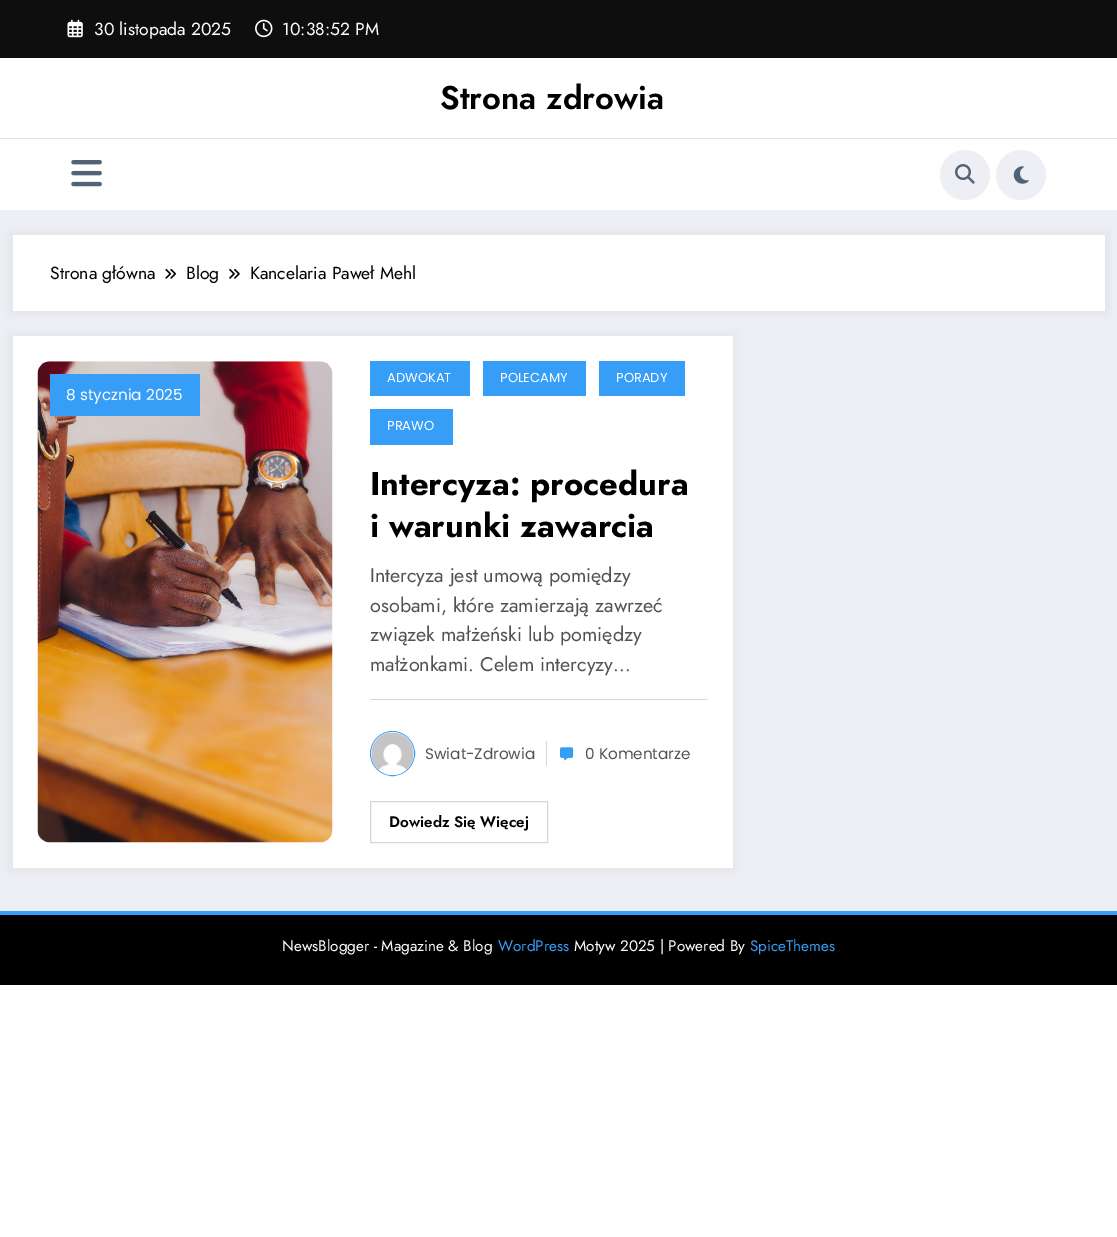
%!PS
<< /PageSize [1117 1237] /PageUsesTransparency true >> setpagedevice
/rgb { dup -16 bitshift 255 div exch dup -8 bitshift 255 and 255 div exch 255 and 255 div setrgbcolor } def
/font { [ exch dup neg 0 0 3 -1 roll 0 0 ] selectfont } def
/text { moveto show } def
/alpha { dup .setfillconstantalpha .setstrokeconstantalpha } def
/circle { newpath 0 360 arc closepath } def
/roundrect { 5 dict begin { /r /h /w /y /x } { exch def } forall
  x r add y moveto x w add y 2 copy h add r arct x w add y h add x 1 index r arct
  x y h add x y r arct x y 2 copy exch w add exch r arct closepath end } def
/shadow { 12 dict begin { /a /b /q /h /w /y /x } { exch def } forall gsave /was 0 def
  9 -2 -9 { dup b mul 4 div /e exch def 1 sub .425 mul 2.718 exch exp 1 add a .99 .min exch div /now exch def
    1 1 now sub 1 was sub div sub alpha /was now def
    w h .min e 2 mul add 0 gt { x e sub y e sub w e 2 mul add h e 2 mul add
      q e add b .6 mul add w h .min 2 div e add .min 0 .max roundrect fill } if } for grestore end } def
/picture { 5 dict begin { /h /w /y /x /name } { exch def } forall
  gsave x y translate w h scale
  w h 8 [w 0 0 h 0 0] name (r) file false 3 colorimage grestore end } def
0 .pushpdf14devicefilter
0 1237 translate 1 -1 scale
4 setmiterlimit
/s1 { /Jost-Regular 17.5 font 16#FFFFFF rgb } def
/s2 { /Jost-SemiBold 32.75 font 16#000000 rgb } def
/s3 { /Jost-Regular 17.5 font 16#000000 rgb } def
/s4 { /Poppins-Regular 15.25 font 16#FFFFFF rgb } def
/s5 { /Poppins-Regular 13 font 16#FFFFFF rgb } def
/s6 { /Jost-Bold 32.75 font 16#000000 rgb } def
/s7 { /Jost-Regular 19.75 font 16#525252 rgb } def
/s8 { /Poppins-Regular 15.25 font 16#525252 rgb } def
/s9 { /Jost-SemiBold 15.25 font 16#000000 rgb } def
/s10 { /Jost-Regular 15.25 font 16#FFFFFF rgb } def
/s11 { /Jost-Regular 15.25 font 16#369EF6 rgb } def
16#FFFFFF rgb
0 0 1117 1237 rectfill
16#EEEEF5 rgb
0 210 1117 701 rectfill
16#0E0E0E rgb
0 0 1117 58 rectfill
(pic1.raw) 67 19 16 19 picture
s1
(30 listopada 2025) 94 35 text
(pic2.raw) 255 19 18 19 picture
(10:38:52 PM) 282 35 text
s2
(Strona zdrowia) 440 109 text
16#E1E1E1 rgb
0 138 1117 1 rectfill
(pic3.raw) 71 160 31 27 picture
16#EEEEF5 rgb
965 175 25 circle fill
(pic4.raw) 955 164 20 20 picture
1021 175 25 circle fill
(pic5.raw) 1013 166 16 18 picture
16#171723 rgb
10 233 1098 81 0 5 0.05 shadow
16#FFFFFF rgb
13 235 1092 76 rectfill
s3
(Strona główna) 50 279 text
(pic6.raw) 165 269 11 10 picture
(Blog) 186 279 text
(pic7.raw) 229 269 11 10 picture
(Kancelaria Paweł Mehl) 250 279 text
16#171723 rgb
10 334 725 536 0 5 0.05 shadow
16#FFFFFF rgb
13 336 720 532 rectfill
(pic8.raw) 37 361 296 482 picture
16#369EF6 rgb
50 374 150 42 rectfill
s4
(8 stycznia 2025) 66 400 text
16#369EF6 rgb
370 361 100 35 rectfill
s5
(ADWOKAT) 387 382 text
16#369EF6 rgb
483 361 103 35 rectfill
s5
(POLECAMY) 500 382 text
16#369EF6 rgb
599 361 86 35 rectfill
s5
(PORADY) 616 382 text
16#369EF6 rgb
370 409 83 36 rectfill
s5
(PRAWO) 387 430 text
s6
(Intercyza: procedura) 370 495 text
(i warunki zawarcia) 370 537 text
16#D7D7D7 rgb
370 699 338 1 rectfill
s7
(Intercyza jest umową pomiędzy) 370 582 text
(osobami, które zamierzają zawrzeć) 370 612 text
(związek małżeński lub pomiędzy) 370 641 text
(małżonkami. Celem intercyzy…) 370 671 text
16#369EF6 rgb
392.5 753.5 22 circle stroke
(pic9.raw) 371 732 43 43 picture
s8
(Swiat-Zdrowia) 425 759 text
16#D7D7D7 rgb
546 741 1 25 rectfill
(pic10.raw) 560 747 14 14 picture
s8
(0 Komentarze) 585 759 text
16#D7D7D7 rgb
370.5 801.5 177 41 rectstroke
s9
(Dowiedz Się Więcej) 389 827 text
16#369EF6 rgb
0 911 1117 4 rectfill
16#000000 rgb
0 915 1117 70 rectfill
s10
(NewsBlogger - Magazine & Blog) 282 951 text
s11
(WordPress) 498 951 text
s10
(Motyw 2025 | Powered By) 574 951 text
s11
(SpiceThemes) 750 951 text
.poppdf14devicefilter showpage
